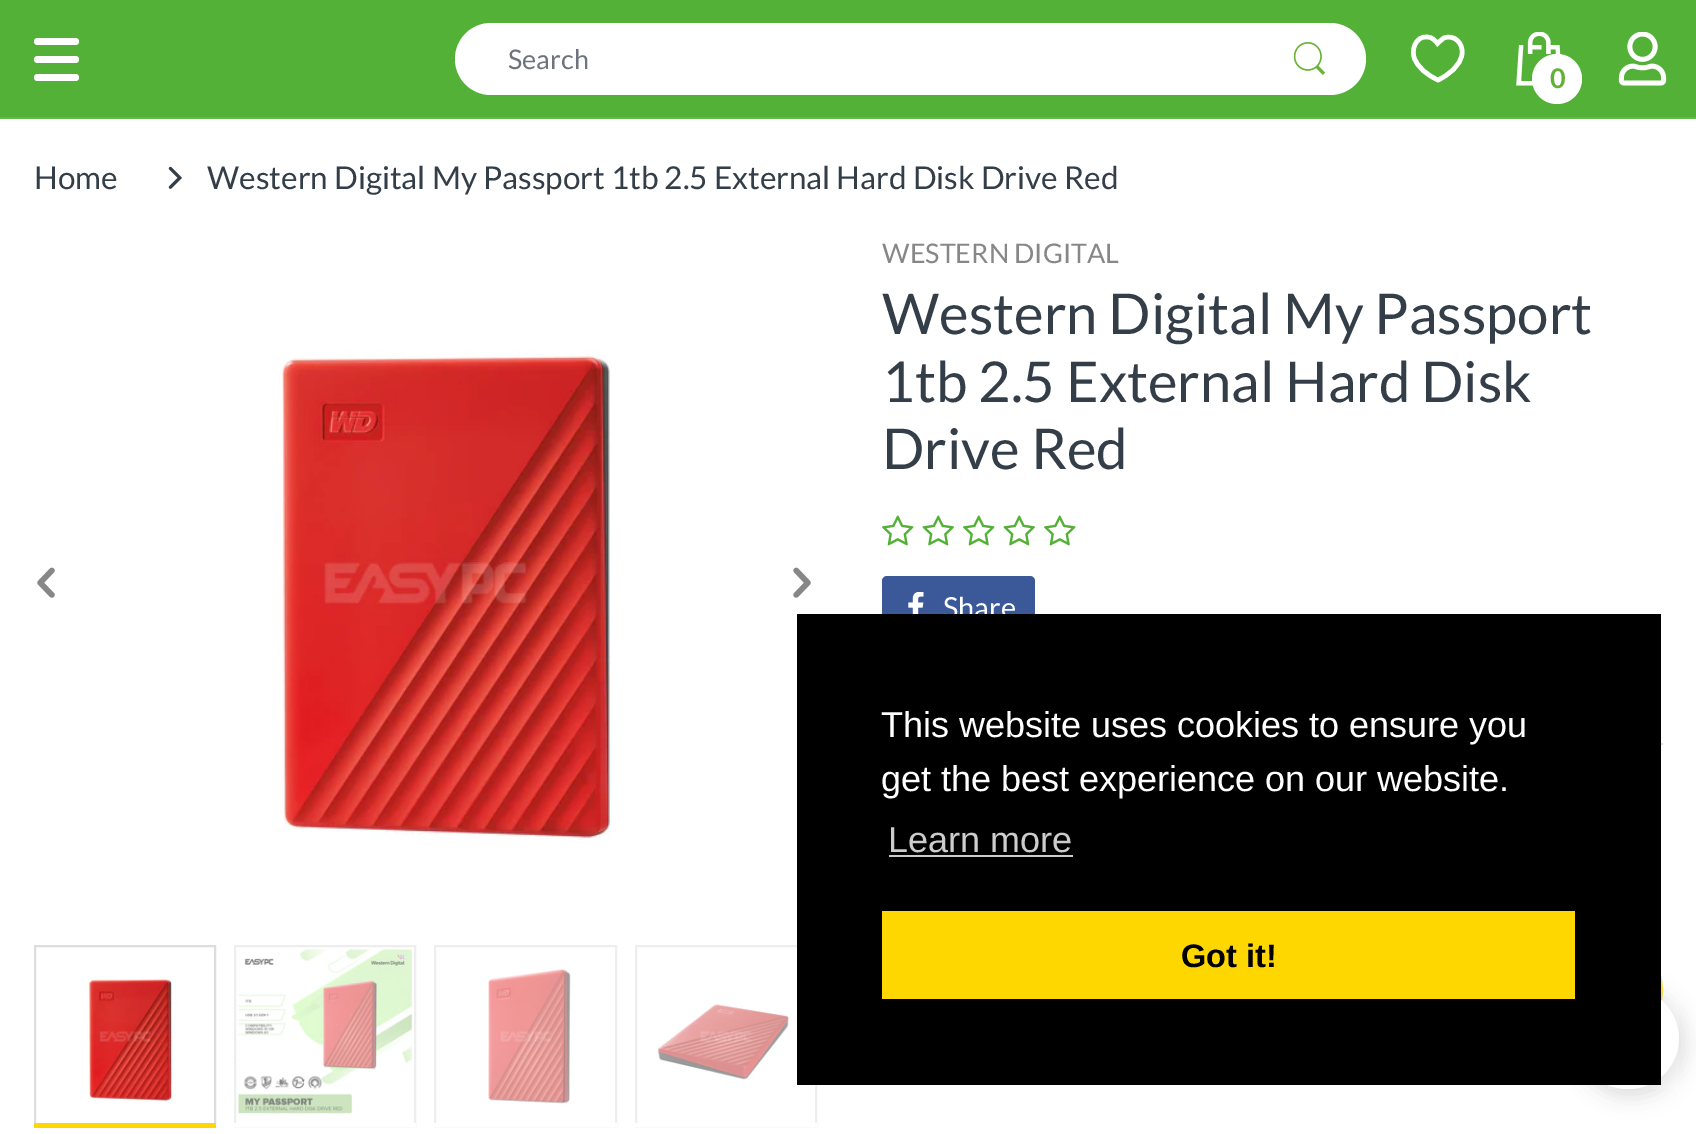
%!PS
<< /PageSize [1696 1134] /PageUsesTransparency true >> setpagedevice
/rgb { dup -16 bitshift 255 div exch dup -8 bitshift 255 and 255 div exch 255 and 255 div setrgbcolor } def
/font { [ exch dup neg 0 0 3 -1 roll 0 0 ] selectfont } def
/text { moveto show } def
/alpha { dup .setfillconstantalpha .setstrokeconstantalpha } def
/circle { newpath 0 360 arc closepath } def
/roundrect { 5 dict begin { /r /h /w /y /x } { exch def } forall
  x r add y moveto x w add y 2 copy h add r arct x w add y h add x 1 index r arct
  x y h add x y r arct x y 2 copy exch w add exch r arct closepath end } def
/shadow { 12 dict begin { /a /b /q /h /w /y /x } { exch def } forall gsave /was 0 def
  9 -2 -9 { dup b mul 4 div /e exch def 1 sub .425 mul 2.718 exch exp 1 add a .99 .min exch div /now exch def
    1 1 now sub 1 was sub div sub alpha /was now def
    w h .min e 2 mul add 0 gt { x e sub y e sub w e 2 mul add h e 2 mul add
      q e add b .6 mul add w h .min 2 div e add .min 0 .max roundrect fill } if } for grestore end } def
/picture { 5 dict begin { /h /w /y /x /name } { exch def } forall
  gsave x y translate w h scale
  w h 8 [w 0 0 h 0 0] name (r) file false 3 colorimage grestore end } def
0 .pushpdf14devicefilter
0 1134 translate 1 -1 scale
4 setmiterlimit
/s1 { /Lato-Regular 27 font 16#6C757D rgb } def
/s2 { /Lato-Bold 27 font 16#62B236 rgb } def
/s3 { /Lato-Regular 31.5 font 16#333E48 rgb } def
/s4 { /Lato-Regular 27 font 16#878787 rgb } def
/s5 { /Lato-Regular 56.25 font 16#333E48 rgb } def
/s6 { /Lato-Regular 29 font 16#FFFFFF rgb } def
/s7 { /LiberationSans-Regular 36 font 16#FFFFFF rgb } def
/s8 { /LiberationSans-Regular 36 font 16#CCCCCC rgb } def
/s9 { /LiberationSans-Bold 32.5 font 16#000000 rgb } def
16#FFFFFF rgb
0 0 1696 1134 rectfill
16#54B137 rgb
0 0 1696 117 rectfill
16#65B94B rgb
0 117 1696 2 rectfill
16#FFFFFF rgb
34 38 45 7 3.5 roundrect fill
34 56 45 7 3.5 roundrect fill
34 74 45 7 3.5 roundrect fill
455 23 911 72 36 roundrect fill
s1
(Search) 508 69 text
(pic1.raw) 1294 42 31 33 picture
16#FFFFFF rgb
4.5 setlinewidth
1438 80 moveto 1428 75.5 1417 67.5 1414 57 curveto 1411 45.5 1419 33 1431.5 38 curveto 1434 39.5 1436 41.5 1437.5 43.5 curveto 1439.5 41.5 1441.5 39.5 1444 38 curveto 1454.5 34 1463.5 43.5 1462 54 curveto 1460.5 66 1448.5 75 1438 80 curveto closepath stroke
(pic2.raw) 1516 32 45 54 picture
1557 79 25 circle fill
s2
(0) 1550 88 text
(pic3.raw) 1618 32 49 54 picture
s3
(Home) 34 189 text
(pic4.raw) 168 166 14 23 picture
(Western Digital My Passport 1tb 2.5 External Hard Disk Drive Red) 207 189 text
(pic5.raw) 281 349 331 491 picture
(pic6.raw) 37 567 18 31 picture
(pic7.raw) 793 567 18 31 picture
16#DDDDDD rgb
2 setlinewidth
35 946 180 180 rectstroke
(pic8.raw) 87 977 90 126 picture
16#FED700 rgb
34 1123 182 5 rectfill
16#EEEEEE rgb
235 946 180 180 rectstroke
(pic9.raw) 238 949 174 165 picture
16#FFFFFF rgb
234 1123 182 4 rectfill
16#EEEEEE rgb
435 946 181 180 rectstroke
(pic10.raw) 488 968 83 136 picture
16#FFFFFF rgb
434 1123 183 4 rectfill
16#EEEEEE rgb
636 946 180 180 rectstroke
(pic11.raw) 658 1004 132 76 picture
16#FFFFFF rgb
635 1123 182 4 rectfill
s4
(WESTERN DIGITAL) 882 263 text
s5
(Western Digital My Passport) 882 334 text
(1tb 2.5 External Hard Disk) 882 402 text
(Drive Red) 882 469 text
(pic12.raw) 882 515 32 31 picture
(pic13.raw) 922 515 32 31 picture
(pic12.raw) 963 515 32 31 picture
(pic13.raw) 1003 515 32 31 picture
(pic12.raw) 1044 515 32 31 picture
16#3B5998 rgb
882 576 153 63 5 roundrect fill
(pic14.raw) 908 592 16 22 picture
s6
(Share) 943 618 text
16#DDDDDD rgb
1661 743 2 2 rectfill
16#FEE559 rgb
883 937 779 106 53 roundrect stroke
16#000000 rgb
1577 988 111 110 55 10 0.07 shadow
1577 992 102 102 51 11 0.05 shadow
(pic15.raw) 1608 1000 71 89 picture
797 614 864 471 rectfill
s7
(This website uses cookies to ensure you) 881 737 text
(get the best experience on our website.) 881 791 text
s8
(Learn more) 888 852 text
889 855 184 2 rectfill
16#FED700 rgb
882 911 693 88 rectfill
s9
(Got it!) 1181 967 text
.poppdf14devicefilter showpage
